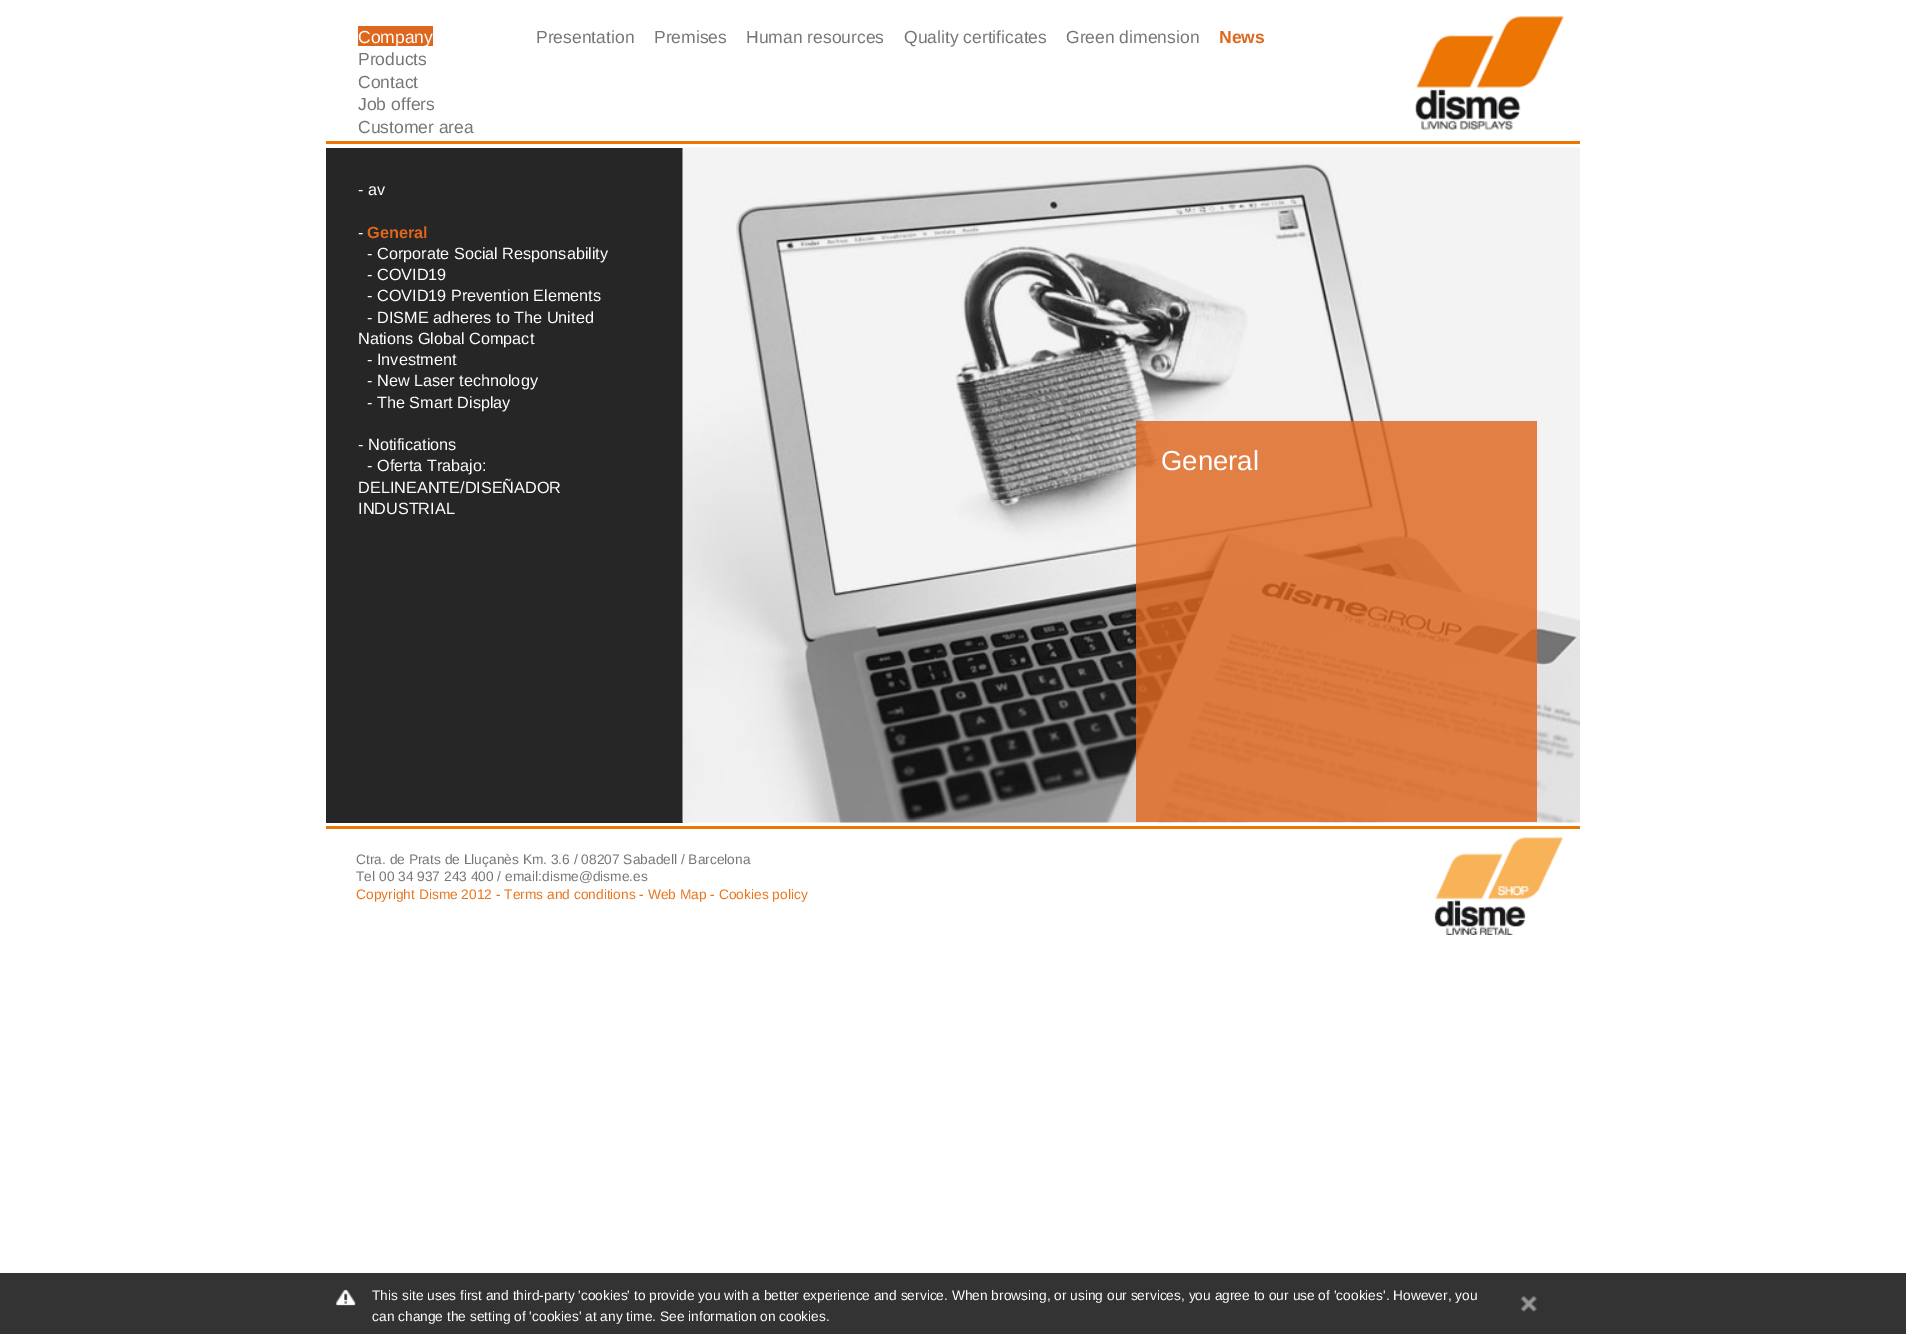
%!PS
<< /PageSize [1906 1334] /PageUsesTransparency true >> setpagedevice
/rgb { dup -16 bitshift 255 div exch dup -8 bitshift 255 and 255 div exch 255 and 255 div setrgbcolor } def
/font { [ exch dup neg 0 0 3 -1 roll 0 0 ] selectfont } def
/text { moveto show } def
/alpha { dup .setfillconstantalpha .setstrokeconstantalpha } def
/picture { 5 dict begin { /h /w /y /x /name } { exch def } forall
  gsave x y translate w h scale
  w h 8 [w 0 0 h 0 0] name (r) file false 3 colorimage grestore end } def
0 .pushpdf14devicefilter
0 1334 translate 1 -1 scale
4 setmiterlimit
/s1 { /LiberationSans-Regular 17.5 font 16#FFFFFF rgb } def
/s2 { /LiberationSans-Regular 17.5 font 16#767675 rgb } def
/s3 { /LiberationSans-Bold 17.5 font 16#DE671E rgb } def
/s4 { /LiberationSans-Regular 16.25 font 16#FFFFFF rgb } def
/s5 { /LiberationSans-Bold 16.25 font 16#DE671E rgb } def
/s6 { /LiberationSans-Regular 27.5 font 16#FFFFFF rgb } def
/s7 { /LiberationSans-Regular 13.75 font 16#767675 rgb } def
/s8 { /LiberationSans-Regular 13.75 font 16#E9741B rgb } def
/s9 { /LiberationSans-Regular 13.75 font 16#FFFFFF rgb } def
16#FFFFFF rgb
0 0 1906 1334 rectfill
16#DE671E rgb
358 26 75 20 rectfill
s1
(Company) 358 43 text
s2
(Products) 358 65 text
(Contact) 358 88 text
(Job offers) 358 110 text
(Customer area) 358 133 text
(Presentation) 536 43 text
(Premises) 654 43 text
(Human resources) 746 43 text
(Quality certificates) 904 43 text
(Green dimension) 1066 43 text
s3
(News) 1219 43 text
(pic1.raw) 1415 16 149 114 picture
16#EC7601 rgb
326 141 1254 3 rectfill
16#262626 rgb
326 148 357 675 rectfill
s4
(- av) 358 195 text
(-) 358 238 text
s5
(General) 367 238 text
s4
(- Corporate Social Responsability) 367 259 text
(- COVID19) 367 280 text
(- COVID19 Prevention Elements) 367 301 text
(- DISME adheres to The United) 367 323 text
(Nations Global Compact) 358 344 text
(- Investment) 367 365 text
(- New Laser technology) 367 386 text
(- The Smart Display) 367 408 text
(- Notifications) 358 450 text
(- Oferta Trabajo:) 367 471 text
(DELINEANTE/DISEÑADOR) 358 493 text
(INDUSTRIAL) 358 514 text
(pic2.raw) 682 147 898 676 picture
0.82 alpha
16#DE661F rgb
1136 421 401 401 rectfill
1 alpha
s6
(General) 1161 470 text
16#EC7601 rgb
326 826 1254 3 rectfill
s7
(Ctra. de Prats de Lluçanès Km. 3.6 / 08207 Sabadell / Barcelona) 356 864 text
(Tel 00 34 937 243 400 / email:) 356 881 text
(disme@disme.es) 542 881 text
s8
(Copyright Disme 2012 - Terms and conditions - Web Map - Cookies policy) 356 899 text
(pic3.raw) 1434 837 129 98 picture
16#333333 rgb
0 1273 1906 61 rectfill
(pic4.raw) 336 1289 20 17 picture
s9
(This site uses first and third-party 'cookies' to provide you with a better experience and service. When browsing, or using our services, you agree to our use of 'cookies'. However, you) 372 1300 text
(pic5.raw) 1520 1296 17 16 picture
(can change the setting of 'cookies' at any time. See information on cookies.) 372 1321 text
.poppdf14devicefilter showpage
